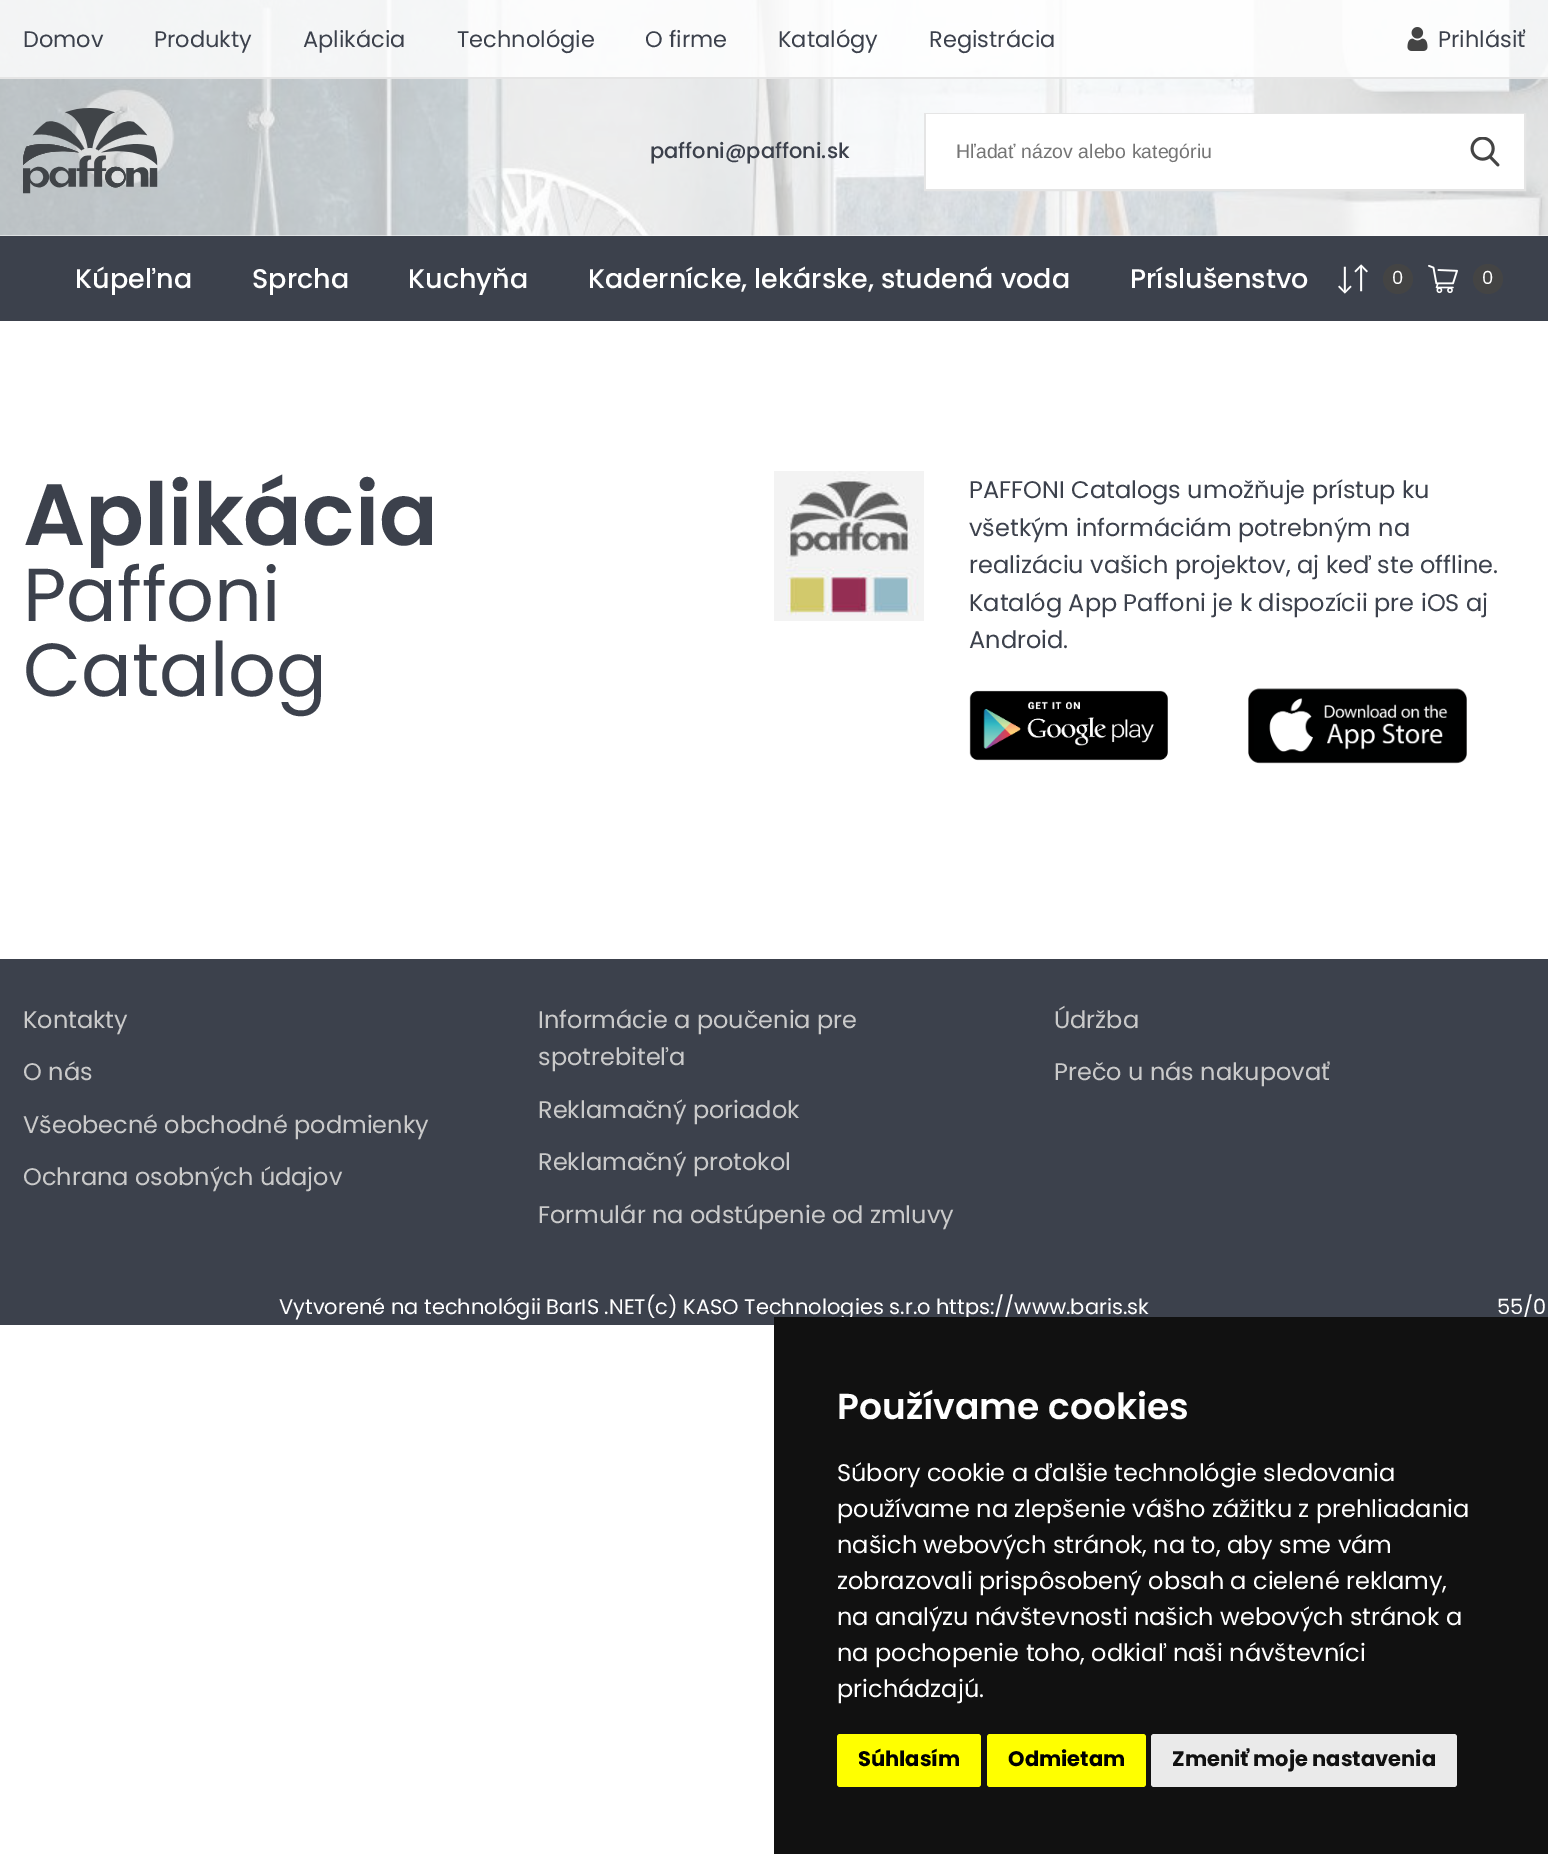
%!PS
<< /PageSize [1548 1854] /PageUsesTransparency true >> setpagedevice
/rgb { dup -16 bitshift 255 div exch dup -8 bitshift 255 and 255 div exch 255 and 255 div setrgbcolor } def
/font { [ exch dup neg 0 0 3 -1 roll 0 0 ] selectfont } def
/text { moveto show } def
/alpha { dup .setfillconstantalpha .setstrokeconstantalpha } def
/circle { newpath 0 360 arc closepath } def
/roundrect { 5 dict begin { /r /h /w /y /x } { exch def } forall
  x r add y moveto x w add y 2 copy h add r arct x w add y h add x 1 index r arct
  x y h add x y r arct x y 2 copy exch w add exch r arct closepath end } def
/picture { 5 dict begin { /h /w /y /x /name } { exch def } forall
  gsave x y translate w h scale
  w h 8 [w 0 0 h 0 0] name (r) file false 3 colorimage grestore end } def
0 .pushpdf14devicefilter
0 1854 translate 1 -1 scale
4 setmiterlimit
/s1 { /Poppins-Regular 22.5 font 16#3C414C rgb } def
/s2 { /Poppins-Medium 21 font 16#3C414C rgb } def
/s3 { /LiberationSans-Regular 19.5 font 16#757575 rgb } def
/s4 { /Poppins-Medium 27 font 16#FFFFFF rgb } def
/s5 { /Poppins-Regular 18 font 16#FFFFFF rgb } def
/s6 { /Poppins-SemiBold 87 font 16#3C414C rgb } def
/s7 { /Poppins-Regular 75 font 16#3C414C rgb } def
/s8 { /Poppins-Regular 24 font 16#3C414C rgb } def
/s9 { /Poppins-Regular 24 font 16#CACACA rgb } def
/s10 { /Poppins-Regular 21 font 16#FFFFFF rgb } def
/s11 { /Poppins-SemiBold 36 font 16#FFFFFF rgb } def
/s12 { /Poppins-Regular 24 font 16#FFFFFF rgb } def
/s13 { /Poppins-Bold 21 font 16#000000 rgb } def
/s14 { /Poppins-Bold 21 font 16#111111 rgb } def
16#FFFFFF rgb
0 0 1548 1854 rectfill
(pic1.raw) 0 0 1548 236 picture
0.82 alpha
0 0 1548 77 rectfill
1 alpha
16#E5E5E5 rgb
0 77 1548 2 rectfill
s1
(Domov) 23 47 text
(Produkty) 154 47 text
(Aplikácia) 303 47 text
(Technológie) 457 47 text
(O firme) 645 47 text
(Katalógy) 778 47 text
(Registrácia) 929 47 text
(pic2.raw) 1407 27 21 24 picture
(Prihlásiť) 1438 47 text
(pic3.raw) 23 108 135 86 picture
s2
(paffoni@paffoni.sk) 650 158 text
16#E5E5E5 rgb
2 setlinewidth
925 114 600 76 rectstroke
16#FFFFFF rgb
926 114 598 75 rectfill
s3
(Hľadať názov alebo kategóriu) 956 158 text
(pic4.raw) 1470 137 30 30 picture
16#3C414C rgb
0 236 1548 85 rectfill
s4
(Kúpeľna) 75 288 text
(Sprcha) 252 288 text
(Kuchyňa) 408 288 text
(Kadernícke, lekárske, studená voda) 588 288 text
(Príslušenstvo) 1130 288 text
(pic5.raw) 1338 264 30 30 picture
16#444444 rgb
1398 279 15 circle fill
s5
(0) 1392 284 text
(pic6.raw) 1428 264 30 30 picture
16#444444 rgb
1488 279 15 circle fill
s5
(0) 1482 284 text
s6
(Aplikácia) 23 545 text
s7
(Paffoni) 23 621 text
(Catalog) 23 696 text
(pic7.raw) 774 471 150 150 picture
s8
(PAFFONI Catalogs umožňuje prístup ku) 969 498 text
(všetkým informáciám potrebným na) 969 536 text
(realizáciu vašich projektov, aj keď ste offline.) 969 573 text
(Katalóg App Paffoni je k dispozícii pre iOS aj) 969 611 text
(Android.) 969 648 text
(pic8.raw) 969 690 199 71 picture
(pic9.raw) 1248 688 219 76 picture
0 959 1548 366 rectfill
s9
(Kontakty) 23 1028 text
(O nás) 23 1080 text
(Všeobecné obchodné podmienky) 23 1133 text
(Ochrana osobných údajov) 23 1185 text
(Informácie a poučenia pre) 538 1028 text
(spotrebiteľa) 538 1065 text
(Reklamačný poriadok) 538 1118 text
(Reklamačný protokol) 538 1170 text
(Formulár na odstúpenie od zmluvy) 538 1223 text
(Údržba) 1054 1028 text
(Prečo u nás nakupovať) 1054 1080 text
s10
(Vytvorené na technológii BarIS .NET\(c\) KASO Technologies s.r.o https://www.baris.sk) 279 1314 text
(55/0) 1497 1314 text
16#111111 rgb
774 1317 774 537 rectfill
s11
(Používame cookies) 837 1419 text
s12
(Súbory cookie a ďalšie technológie sledovania) 837 1481 text
(používame na zlepšenie vášho zážitku z prehliadania) 837 1517 text
(našich webových stránok, na to, aby sme vám) 837 1553 text
(zobrazovali prispôsobený obsah a cielené reklamy,) 837 1589 text
(na analýzu návštevnosti našich webových stránok a) 837 1625 text
(na pochopenie toho, odkiaľ naši návštevníci) 837 1661 text
(prichádzajú.) 837 1697 text
16#FFFF00 rgb
837 1734 144 53 3 roundrect fill
s13
(Súhlasím) 858 1766 text
16#FFFF00 rgb
987 1734 159 53 3 roundrect fill
s13
(Odmietam) 1008 1766 text
16#EAEAEA rgb
1151 1734 306 53 3 roundrect fill
s14
(Zmeniť moje nastavenia) 1172 1766 text
.poppdf14devicefilter showpage
